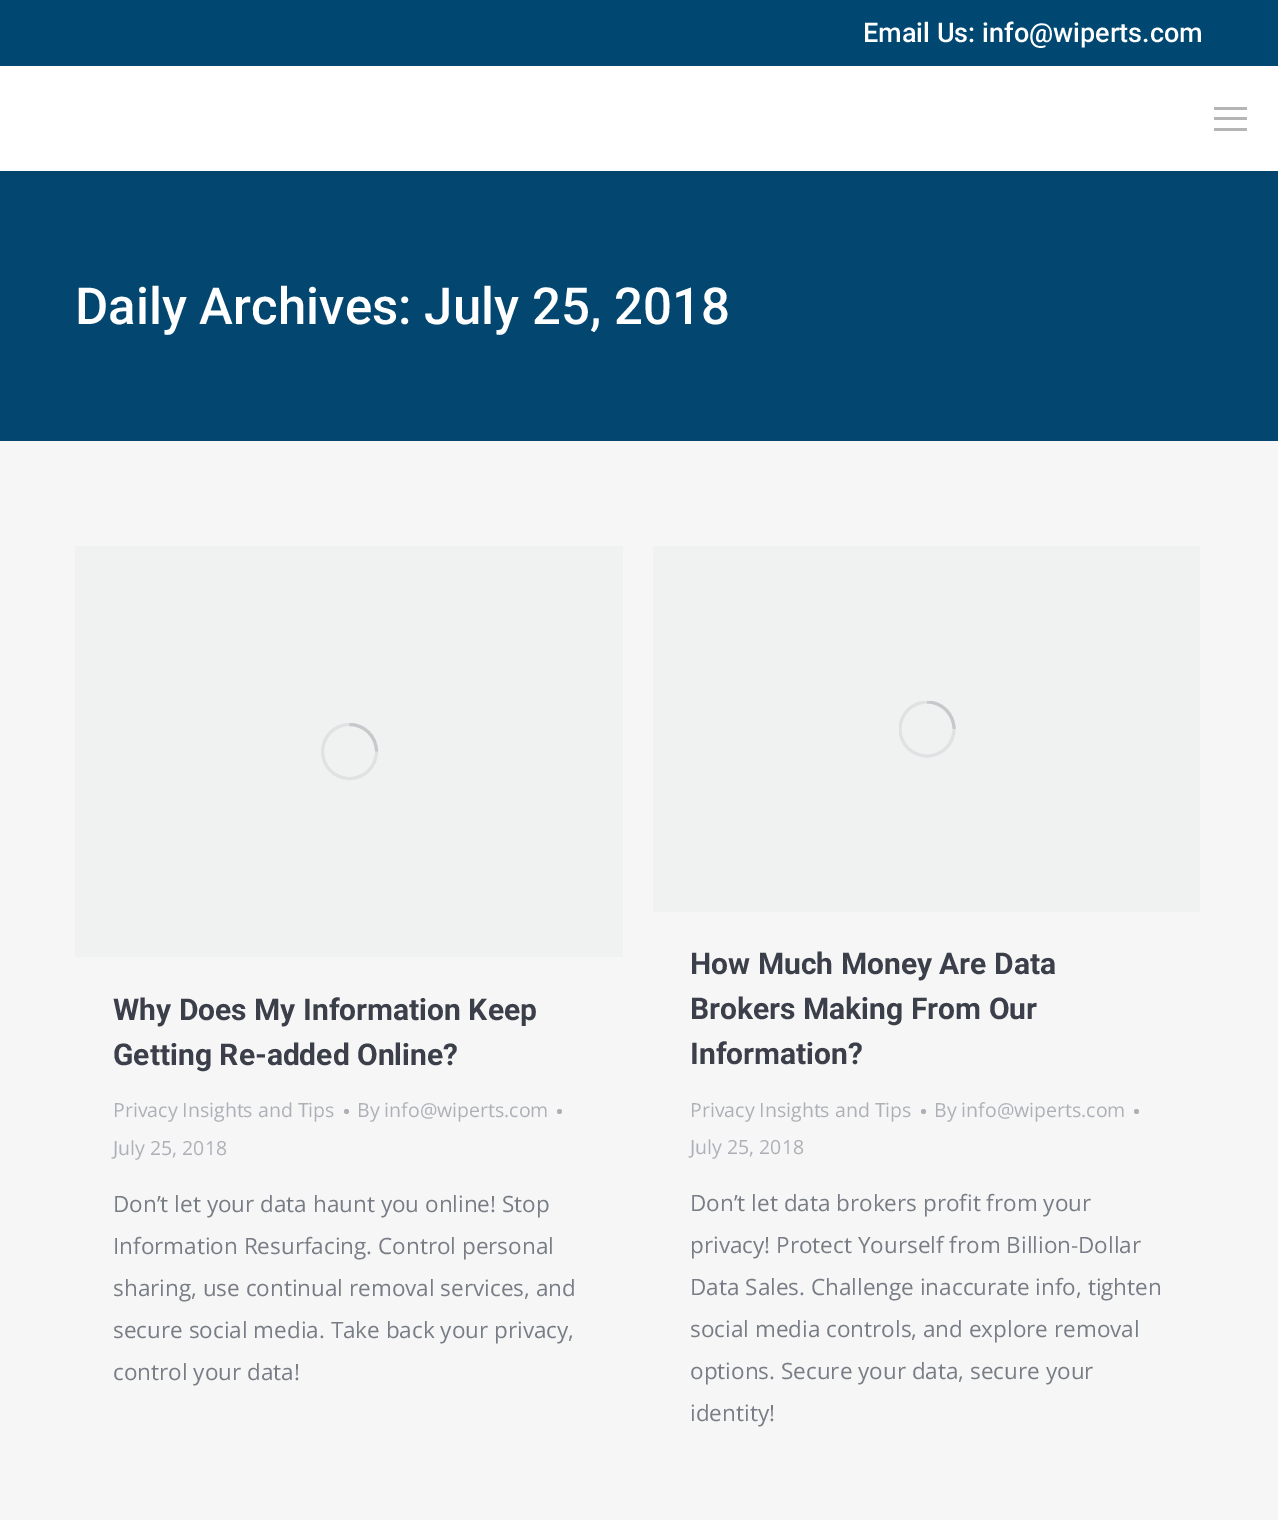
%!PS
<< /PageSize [1278 1520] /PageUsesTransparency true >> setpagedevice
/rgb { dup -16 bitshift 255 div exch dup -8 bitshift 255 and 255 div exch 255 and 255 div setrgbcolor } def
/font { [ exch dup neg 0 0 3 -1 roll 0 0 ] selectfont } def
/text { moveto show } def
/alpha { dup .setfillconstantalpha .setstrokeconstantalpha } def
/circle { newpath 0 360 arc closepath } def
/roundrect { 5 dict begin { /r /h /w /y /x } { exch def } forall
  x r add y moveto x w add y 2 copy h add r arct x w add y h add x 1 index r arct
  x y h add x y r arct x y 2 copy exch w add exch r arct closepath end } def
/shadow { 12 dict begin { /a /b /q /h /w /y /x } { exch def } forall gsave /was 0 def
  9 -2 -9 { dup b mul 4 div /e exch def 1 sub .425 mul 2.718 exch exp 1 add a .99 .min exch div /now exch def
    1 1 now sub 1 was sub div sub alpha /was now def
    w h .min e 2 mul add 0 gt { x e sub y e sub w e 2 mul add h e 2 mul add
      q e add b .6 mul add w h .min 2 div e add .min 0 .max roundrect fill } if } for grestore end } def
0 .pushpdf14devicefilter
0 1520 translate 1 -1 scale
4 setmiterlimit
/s1 { /Roboto-Medium 27 font 16#FFFFFF rgb } def
/s2 { /Roboto-Medium 51 font 16#FFFFFF rgb } def
/s3 { /Roboto-Bold 30 font 16#3B3F4A rgb } def
/s4 { /OpenSans-Regular 19.5 font 16#ADB0B6 rgb } def
/s5 { /OpenSans-Regular 22.5 font 16#787D85 rgb } def
16#F6F6F6 rgb
0 0 1278 1520 rectfill
16#034770 rgb
0 171 1278 270 rectfill
16#000000 rgb
-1 -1 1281 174 0 11 0.07 shadow
16#FFFFFF rgb
0 66 1278 105 rectfill
16#004771 rgb
0 0 1278 66 rectfill
s1
(Email Us: info@wiperts.com) 863 42 text
16#B5B5B5 rgb
1214 107 33 3 rectfill
1214 117 33 3 rectfill
1214 128 33 3 rectfill
s2
(Daily Archives: July 25, 2018) 75 324 text
16#F0F1F1 rgb
75 546 548 411 rectfill
16#E0E1E2 rgb
3 setlinewidth
349.5 751.5 27 circle stroke
0.25 alpha
16#787D85 rgb
376.5 751.5 moveto 376.5 736.5 364.5 724.5 349.5 724.5 curveto stroke
1 alpha
s3
(Why Does My Information Keep) 113 1020 text
(Getting Re-added Online?) 113 1065 text
s4
(Privacy Insights and Tips) 113 1117 text
346.5 1111.5 2.5 circle fill
(By info@wiperts.com) 357 1117 text
559.5 1111.5 2.5 circle fill
(July 25, 2018) 113 1155 text
s5
(Don’t let your data haunt you online! Stop) 113 1212 text
(Information Resurfacing. Control personal) 113 1254 text
(sharing, use continual removal services, and) 113 1296 text
(secure social media. Take back your privacy,) 113 1338 text
(control your data!) 113 1380 text
16#F0F1F1 rgb
653 546 547 366 rectfill
gsave
899 701 57 57 rectclip
16#E0E1E2 rgb
927 729 27 circle stroke
0.25 alpha
16#787D85 rgb
954 729 moveto 954 714 942 702 927 702 curveto stroke
grestore
s3
(How Much Money Are Data) 690 974 text
(Brokers Making From Our) 690 1019 text
(Information?) 690 1064 text
s4
(Privacy Insights and Tips) 690 1117 text
923.5 1111.5 2.5 circle fill
(By info@wiperts.com) 934 1117 text
1136.5 1111.5 2.5 circle fill
(July 25, 2018) 690 1154 text
s5
(Don’t let data brokers profit from your) 690 1211 text
(privacy! Protect Yourself from Billion-Dollar) 690 1253 text
(Data Sales. Challenge inaccurate info, tighten) 690 1295 text
(social media controls, and explore removal) 690 1337 text
(options. Secure your data, secure your) 690 1379 text
(identity!) 690 1421 text
.poppdf14devicefilter showpage
